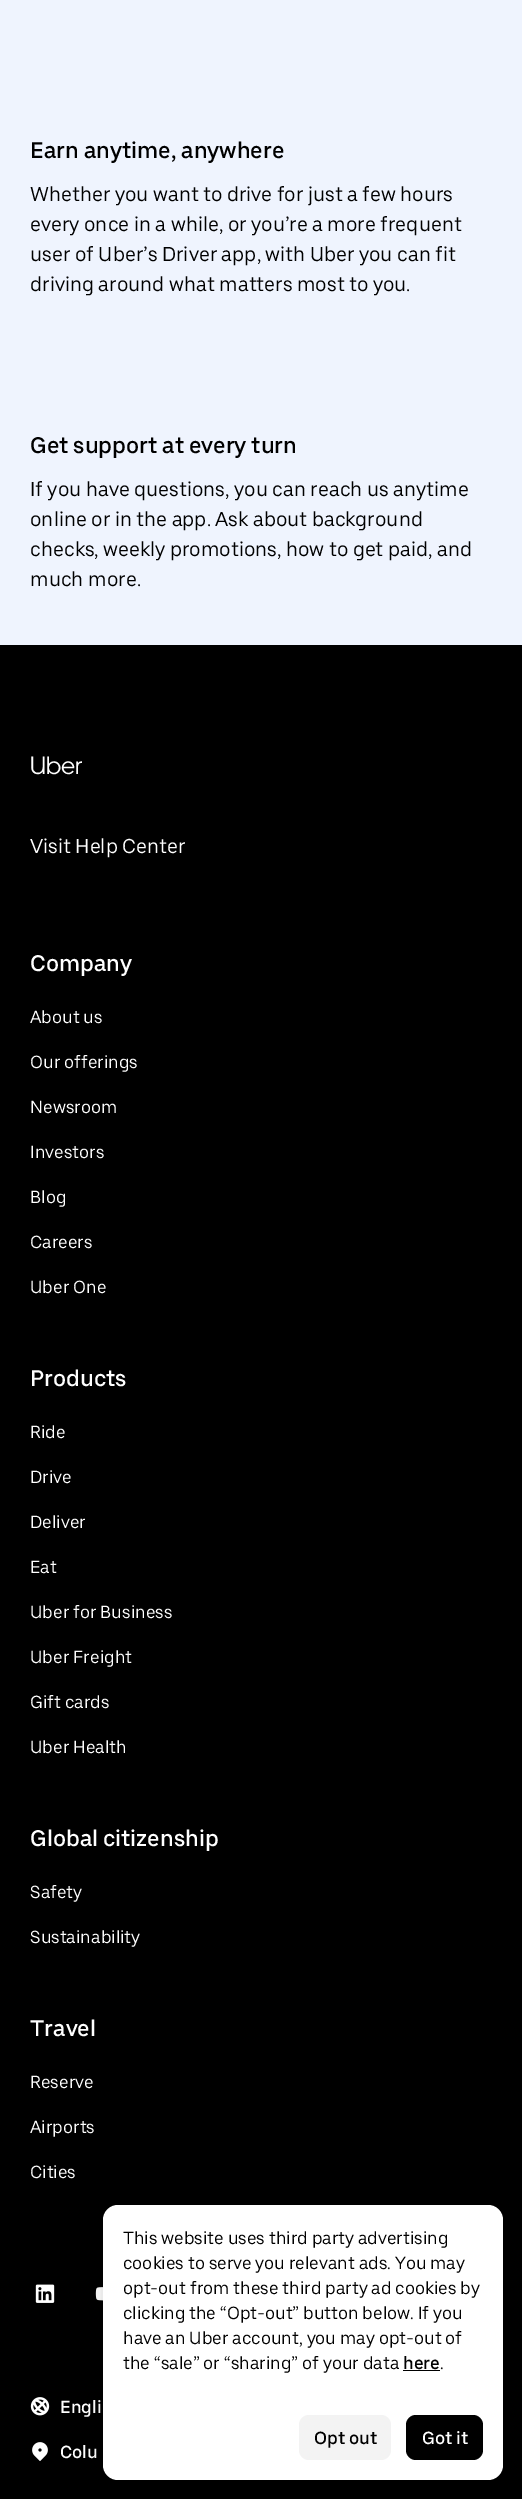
%!PS
<< /PageSize [522 2499] /PageUsesTransparency true >> setpagedevice
/rgb { dup -16 bitshift 255 div exch dup -8 bitshift 255 and 255 div exch 255 and 255 div setrgbcolor } def
/font { [ exch dup neg 0 0 3 -1 roll 0 0 ] selectfont } def
/text { moveto show } def
/alpha { dup .setfillconstantalpha .setstrokeconstantalpha } def
/roundrect { 5 dict begin { /r /h /w /y /x } { exch def } forall
  x r add y moveto x w add y 2 copy h add r arct x w add y h add x 1 index r arct
  x y h add x y r arct x y 2 copy exch w add exch r arct closepath end } def
/shadow { 12 dict begin { /a /b /q /h /w /y /x } { exch def } forall gsave /was 0 def
  9 -2 -9 { dup b mul 4 div /e exch def 1 sub .425 mul 2.718 exch exp 1 add a .99 .min exch div /now exch def
    1 1 now sub 1 was sub div sub alpha /was now def
    w h .min e 2 mul add 0 gt { x e sub y e sub w e 2 mul add h e 2 mul add
      q e add b .6 mul add w h .min 2 div e add .min 0 .max roundrect fill } if } for grestore end } def
/picture { 5 dict begin { /h /w /y /x /name } { exch def } forall
  gsave x y translate w h scale
  w h 8 [w 0 0 h 0 0] name (r) file false 3 colorimage grestore end } def
0 .pushpdf14devicefilter
0 2499 translate 1 -1 scale
4 setmiterlimit
/s1 { /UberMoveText-Medium 22.5 font 16#000000 rgb } def
/s2 { /UberMoveText-Regular 20 font 16#000000 rgb } def
/s3 { /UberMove-Regular 25 font 16#FFFFFF rgb } def
/s4 { /UberMoveText-Regular 20 font 16#FFFFFF rgb } def
/s5 { /UberMoveText-Medium 22.5 font 16#FFFFFF rgb } def
/s6 { /UberMoveText-Regular 17.5 font 16#FFFFFF rgb } def
/s7 { /UberMoveText-Medium 17.5 font 16#FFFFFF rgb } def
/s8 { /UberMoveText-Regular 17.5 font 16#000000 rgb } def
/s9 { /UberMoveText-Medium 17.5 font 16#000000 rgb } def
16#EFF4FE rgb
0 0 522 2499 rectfill
s1
(Earn anytime, anywhere) 30 158 text
s2
(Whether you want to drive for just a few hours) 30 201 text
(every once in a while, or you’re a more frequent) 30 231 text
(user of Uber’s Driver app, with Uber you can fit) 30 261 text
(driving around what matters most to you.) 30 291 text
s1
(Get support at every turn) 30 453 text
s2
(If you have questions, you can reach us anytime) 30 496 text
(online or in the app. Ask about background) 30 526 text
(checks, weekly promotions, how to get paid, and) 30 556 text
(much more.) 30 586 text
0 645 522 1854 rectfill
s3
(Uber) 30 774 text
s4
(Visit Help Center) 30 853 text
s5
(Company) 30 971 text
s6
(About us) 30 1023 text
(Our offerings) 30 1068 text
(Newsroom) 30 1113 text
(Investors) 30 1158 text
(Blog) 30 1203 text
(Careers) 30 1248 text
(Uber One) 30 1293 text
s5
(Products) 30 1386 text
s6
(Ride) 30 1438 text
(Drive) 30 1483 text
(Deliver) 30 1528 text
(Eat) 30 1573 text
(Uber for Business) 30 1618 text
(Uber Freight) 30 1663 text
(Gift cards) 30 1708 text
(Uber Health) 30 1753 text
s5
(Global citizenship) 30 1846 text
s6
(Safety) 30 1898 text
(Sustainability) 30 1943 text
s5
(Travel) 30 2036 text
s6
(Reserve) 30 2088 text
(Airports) 30 2133 text
(Cities) 30 2178 text
(pic1.raw) 35 2284 20 19 picture
(pic2.raw) 95 2287 8 14 picture
(pic3.raw) 30 2397 20 19 picture
s7
(Engli) 60 2413 text
(pic4.raw) 32 2442 16 19 picture
(Colu) 60 2458 text
16#000000 rgb
103 2210 400 275 15 10 0.16 shadow
16#FFFFFF rgb
103 2205 400 275 15 roundrect fill
s8
(This website uses third party advertising) 123 2244 text
(cookies to serve you relevant ads. You may) 123 2269 text
(opt-out from these third party ad cookies by) 123 2294 text
(clicking the “Opt-out” button below. If you) 123 2319 text
(have an Uber account, you may opt-out of) 123 2344 text
(the “sale” or “sharing” of your data) 123 2369 text
s9
(here) 403 2369 text
403 2370 37 1 rectfill
s8
(.) 440 2369 text
16#F3F3F3 rgb
299 2415 92 45 10 roundrect fill
s9
(Opt out) 314 2444 text
406 2415 77 45 10 roundrect fill
s7
(Got it) 422 2444 text
.poppdf14devicefilter showpage
